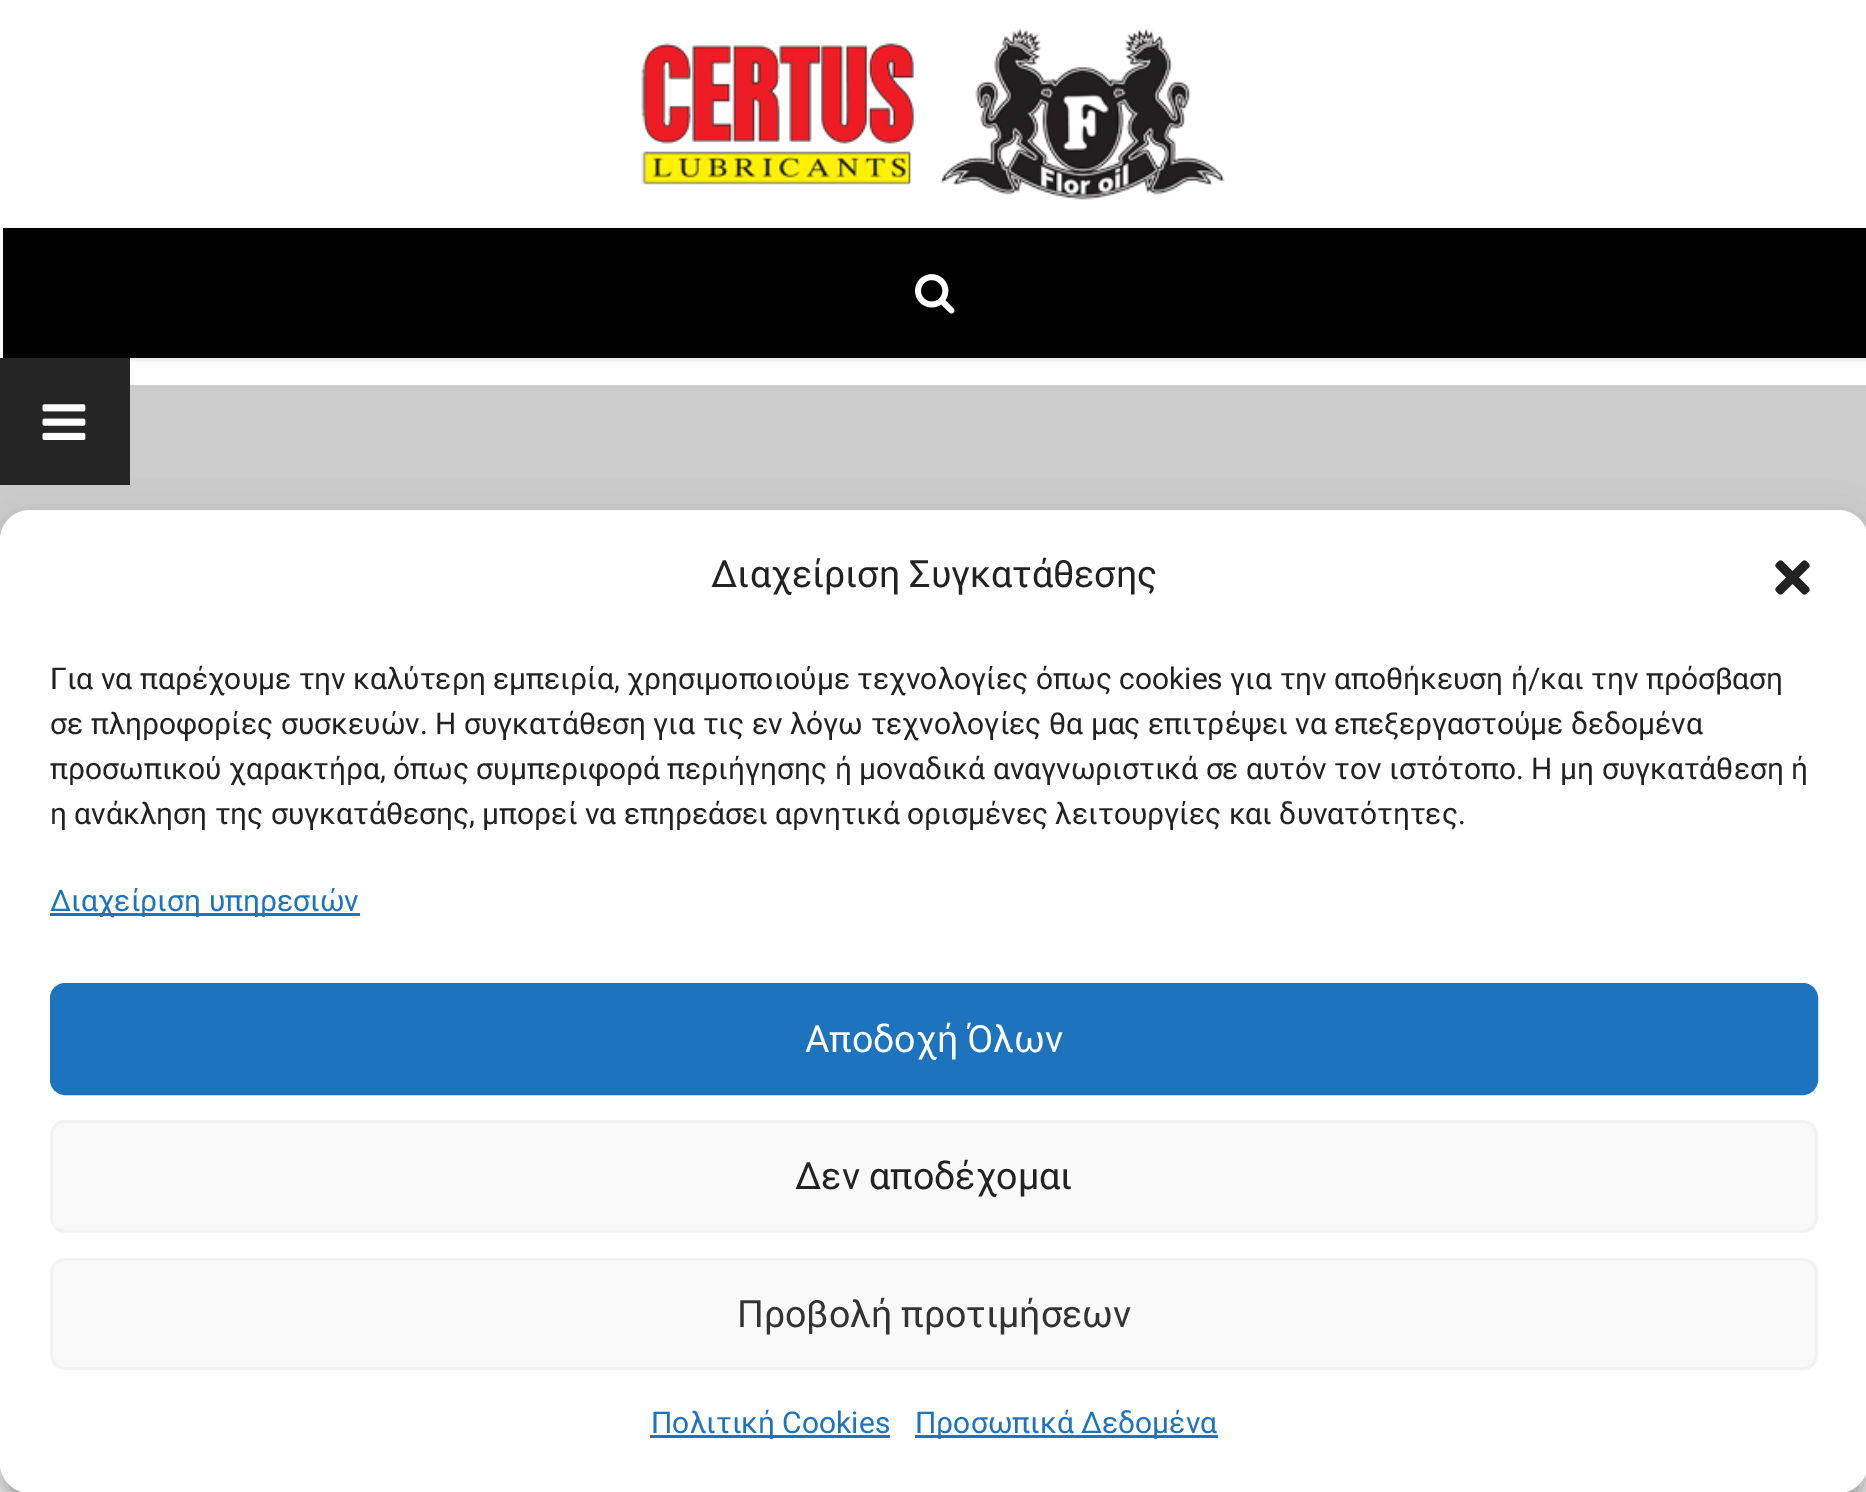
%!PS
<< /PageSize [1866 1492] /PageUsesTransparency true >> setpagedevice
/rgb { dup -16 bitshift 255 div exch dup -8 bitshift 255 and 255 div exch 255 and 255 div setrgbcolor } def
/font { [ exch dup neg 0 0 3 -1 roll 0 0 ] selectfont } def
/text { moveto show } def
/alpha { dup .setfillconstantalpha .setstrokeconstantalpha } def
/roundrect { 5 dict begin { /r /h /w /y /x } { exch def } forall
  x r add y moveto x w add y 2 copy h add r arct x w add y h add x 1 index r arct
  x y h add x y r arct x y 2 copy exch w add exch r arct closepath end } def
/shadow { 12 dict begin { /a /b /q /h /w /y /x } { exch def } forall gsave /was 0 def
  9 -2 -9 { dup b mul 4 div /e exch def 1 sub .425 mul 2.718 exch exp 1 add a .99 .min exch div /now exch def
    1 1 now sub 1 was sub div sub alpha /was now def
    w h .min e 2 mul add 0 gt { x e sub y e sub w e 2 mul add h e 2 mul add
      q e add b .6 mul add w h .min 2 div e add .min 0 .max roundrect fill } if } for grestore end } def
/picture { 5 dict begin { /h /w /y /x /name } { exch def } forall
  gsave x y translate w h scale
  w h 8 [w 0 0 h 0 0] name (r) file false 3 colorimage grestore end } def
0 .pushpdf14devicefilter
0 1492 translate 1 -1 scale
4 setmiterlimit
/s1 { /Roboto-Regular 37.5 font 16#222222 rgb } def
/s2 { /Roboto-Regular 30 font 16#222222 rgb } def
/s3 { /Roboto-Regular 30 font 16#1E73BE rgb } def
/s4 { /Roboto-Regular 37.5 font 16#FFFFFF rgb } def
/s5 { /Roboto-Regular 37.5 font 16#333333 rgb } def
16#FFFFFF rgb
0 0 1866 1492 rectfill
gsave
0 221 moveto 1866 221 lineto 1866 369 lineto 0 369 lineto closepath 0 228 moveto 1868 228 lineto 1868 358 lineto 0 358 lineto closepath eoclip newpath
16#000000 rgb
0 230 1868 130 0 2.5 0.1 shadow
grestore
16#000000 rgb
3 228 1863 130 rectfill
0.05 alpha
0 228 moveto 0 230 lineto 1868 230 lineto 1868 3 lineto 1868 228 lineto closepath fill
1 alpha
(pic1.raw) 641 27 584 173 picture
0.9 alpha
16#FFFFFF rgb
0 357 3 1 rectfill
1 alpha
(pic2.raw) 915 274 40 40 picture
16#CCCCCC rgb
0 385 1866 155 rectfill
16#252525 rgb
0 358 130 127 rectfill
(pic3.raw) 42 404 44 36 picture
16#000000 rgb
0 525 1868 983 30 7.5 0.23 shadow
0 535 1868 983 30 25 0.19 shadow
16#FFFFFF rgb
0 510 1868 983 30 roundrect fill
s1
(Διαχείριση Συγκατάθεσης) 711 587 text
(pic4.raw) 1775 560 35 35 picture
s2
(Για να παρέχουμε την καλύτερη εμπειρία, χρησιμοποιούμε τεχνολογίες όπως cookies για την αποθήκευση ή/και την πρόσβαση) 50 689 text
(σε πληροφορίες συσκευών. Η συγκατάθεση για τις εν λόγω τεχνολογίες θα μας επιτρέψει να επεξεργαστούμε δεδομένα) 50 734 text
(προσωπικού χαρακτήρα, όπως συμπεριφορά περιήγησης ή μοναδικά αναγνωριστικά σε αυτόν τον ιστότοπο. Η μη συγκατάθεση ή) 50 779 text
(η ανάκληση της συγκατάθεσης, μπορεί να επηρεάσει αρνητικά ορισμένες λειτουργίες και δυνατότητες.) 50 824 text
16#1E73BE rgb
50 913 310 3 rectfill
(Διαχείριση υπηρεσιών) 50 911 text
51.5 984.5 1765 109 13.5 roundrect gsave fill grestore
3 setlinewidth
stroke
s4
(Αποδοχή Όλων) 805 1052 text
16#F9F9F9 rgb
51.5 1121.5 1765 110 13.5 roundrect gsave fill grestore
16#F2F2F2 rgb
stroke
s1
(Δεν αποδέχομαι) 795 1189 text
16#F9F9F9 rgb
51.5 1259.5 1765 109 13.5 roundrect gsave fill grestore
16#F2F2F2 rgb
stroke
s5
(Προβολή προτιμήσεων) 737 1327 text
16#1E73BE rgb
650 1435 240 3 rectfill
s3
(Πολιτική Cookies) 651 1433 text
915 1435 303 3 rectfill
(Προσωπικά Δεδομένα) 915 1433 text
.poppdf14devicefilter showpage
